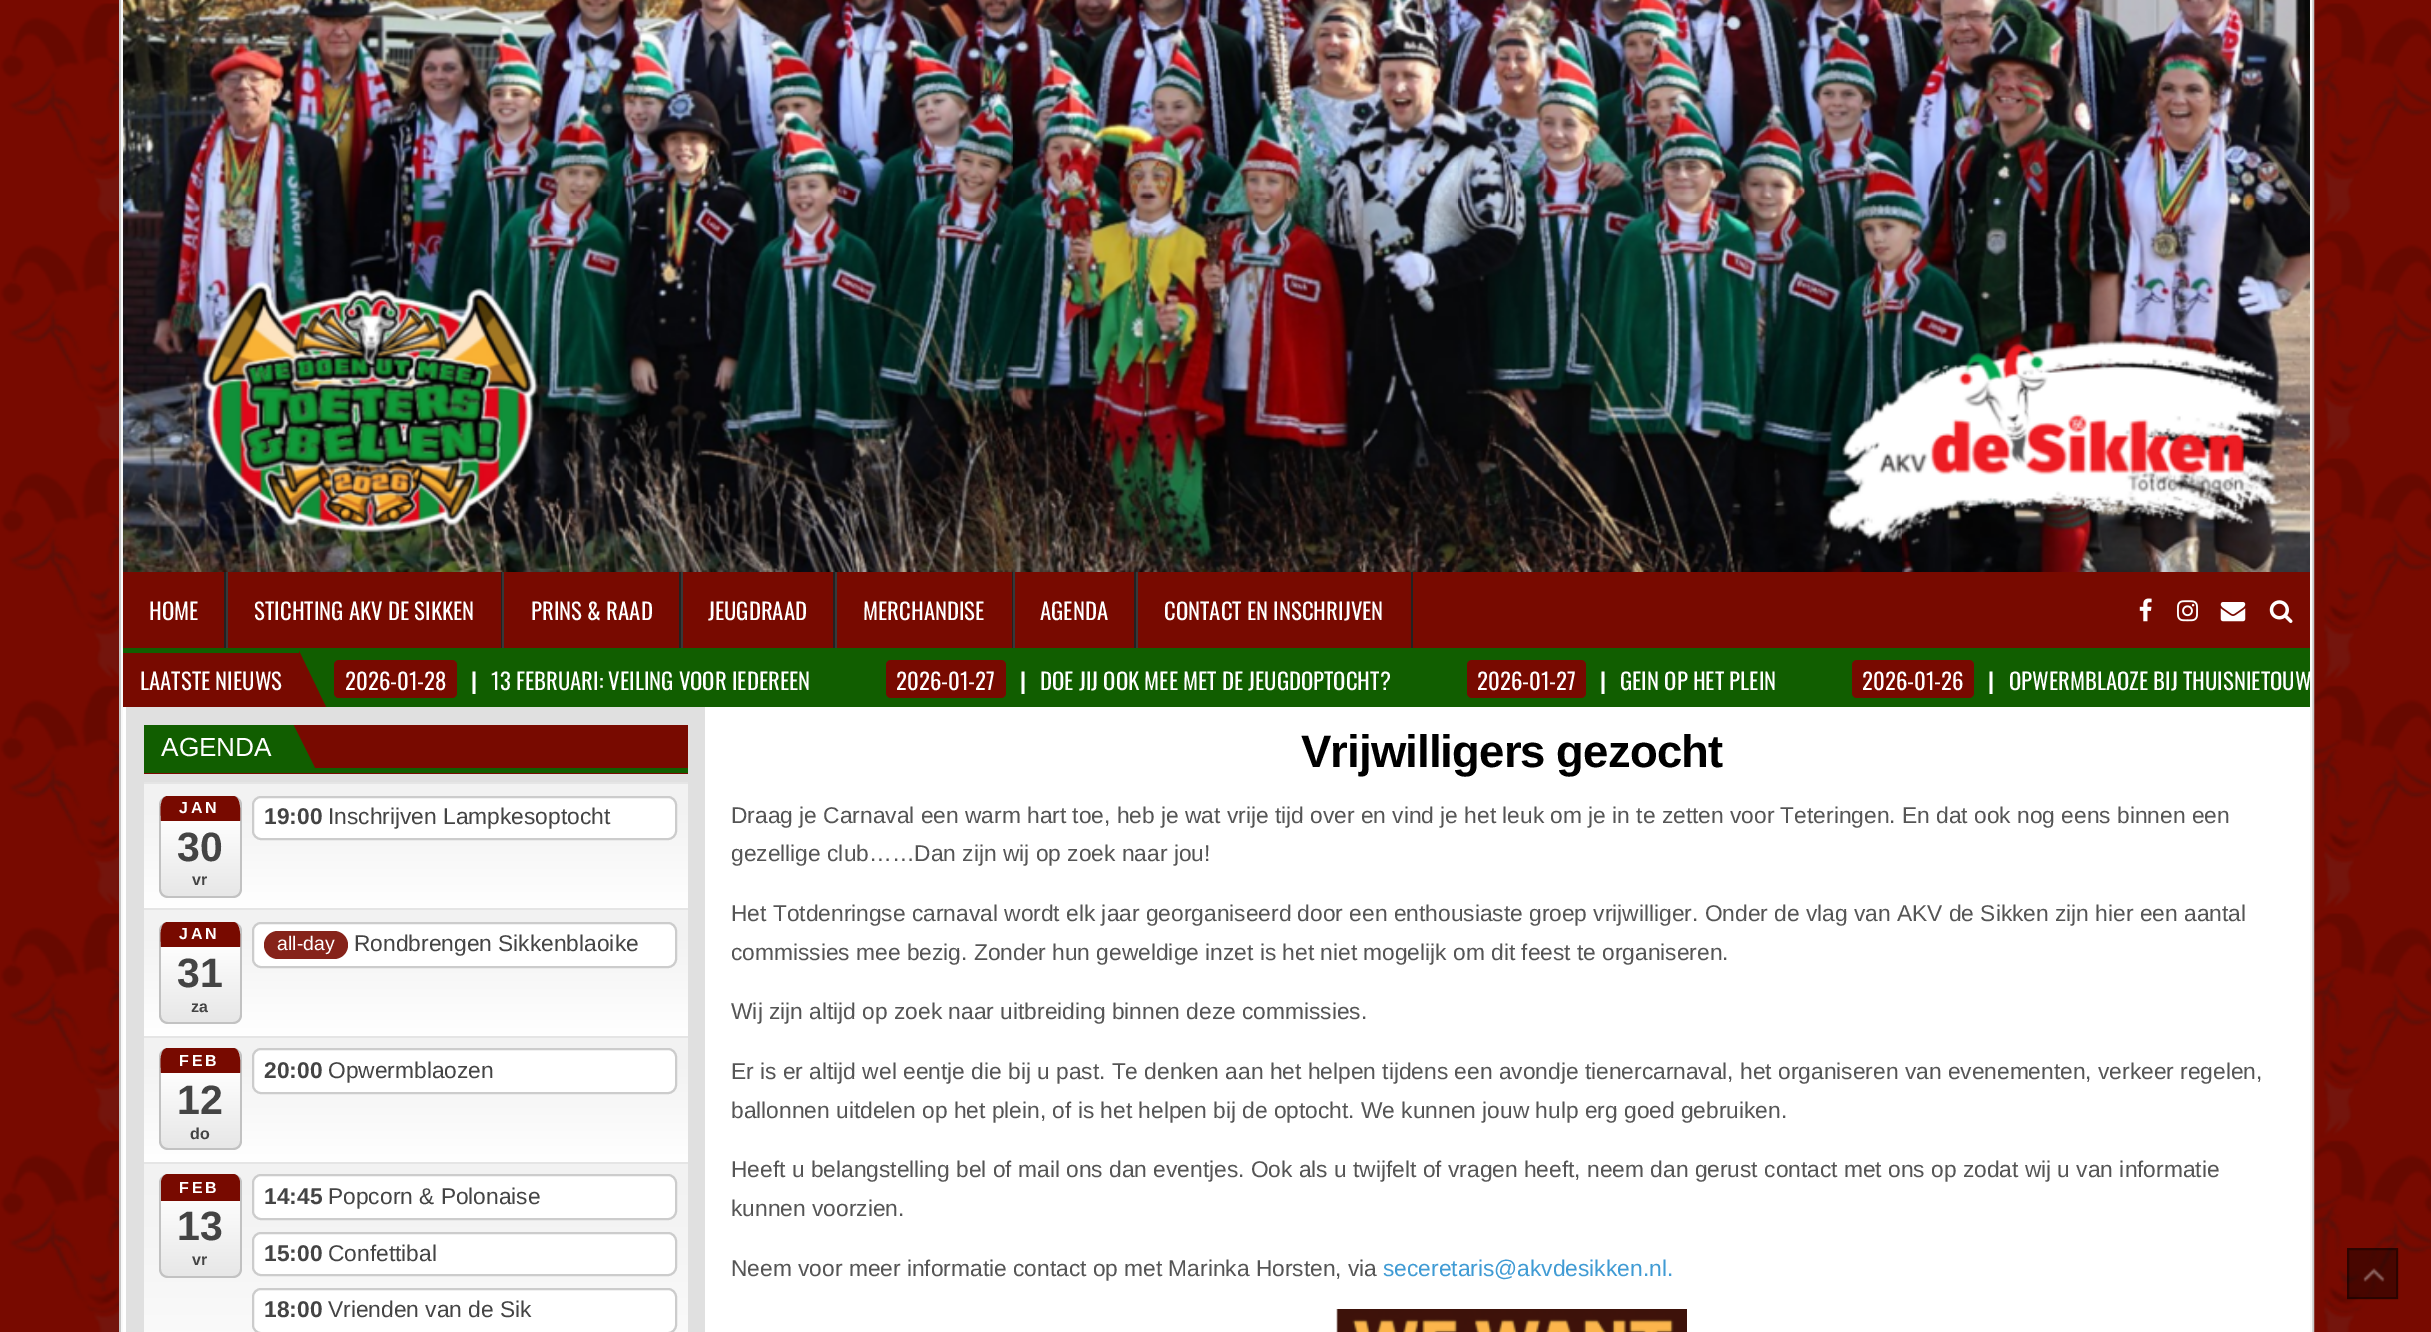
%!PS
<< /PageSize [2431 1332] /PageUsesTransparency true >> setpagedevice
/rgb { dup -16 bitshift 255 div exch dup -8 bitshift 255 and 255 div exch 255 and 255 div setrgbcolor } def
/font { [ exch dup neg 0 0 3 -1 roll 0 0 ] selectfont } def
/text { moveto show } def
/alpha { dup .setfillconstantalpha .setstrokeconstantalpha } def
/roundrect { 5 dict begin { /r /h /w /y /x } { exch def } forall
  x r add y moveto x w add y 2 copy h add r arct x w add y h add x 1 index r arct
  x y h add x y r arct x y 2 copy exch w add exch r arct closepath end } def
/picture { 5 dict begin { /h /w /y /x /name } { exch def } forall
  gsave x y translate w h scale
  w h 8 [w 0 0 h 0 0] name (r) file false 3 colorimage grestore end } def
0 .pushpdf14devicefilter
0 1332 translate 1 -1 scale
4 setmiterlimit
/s1 { /Oswald-Regular 22.75 font 16#FFFFFF rgb } def
/s2 { /Oswald-Bold 22.75 font 16#FFFFFF rgb } def
/s3 { /LiberationSans-Regular 26.25 font 16#FFFFFF rgb } def
/s4 { /LiberationSans-Bold 41 font 16#444444 rgb } def
/s5 { /LiberationSans-Bold 16 font 16#444444 rgb } def
/s6 { /LiberationSans-Bold 22.75 font 16#444444 rgb } def
/s7 { /LiberationSans-Regular 22.75 font 16#444444 rgb } def
/s8 { /LiberationSans-Regular 19.5 font 16#FFFFFF rgb } def
/s9 { /LiberationSans-Regular 22.75 font 16#555555 rgb } def
/s10 { /LiberationSans-Regular 22.75 font 16#409BD4 rgb } def
16#FFFFFF rgb
0 0 2431 1332 rectfill
(pic1.raw) 0 0 2431 1332 picture
16#C8C8C8 rgb
2 setlinewidth
120 -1 2193 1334 rectstroke
16#F9F9F9 rgb
122 -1 2189 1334 rectstroke
(pic2.raw) 123 0 2187 572 picture
16#780A00 rgb
123 572 2107 76 rectfill
16#115E00 rgb
123 648 2187 5 rectfill
16#222222 rgb
224 572 2 76 rectfill
s1
(HOME) 149 620 text
16#222222 rgb
501 572 1 76 rectfill
16#383838 rgb
226 572 2 76 rectfill
s1
(STICHTING AKV DE SIKKEN) 254 620 text
16#222222 rgb
679 572 2 76 rectfill
16#383838 rgb
502 572 2 76 rectfill
s1
(PRINS & RAAD) 531 620 text
16#222222 rgb
833 572 2 76 rectfill
16#383838 rgb
681 572 2 76 rectfill
s1
(JEUGDRAAD) 708 620 text
16#222222 rgb
1012 572 1 76 rectfill
16#383838 rgb
835 572 2 76 rectfill
s1
(MERCHANDISE) 863 620 text
16#222222 rgb
1134 572 2 76 rectfill
16#383838 rgb
1013 572 2 76 rectfill
s1
(AGENDA) 1040 620 text
16#222222 rgb
1411 572 2 76 rectfill
16#383838 rgb
1136 572 2 76 rectfill
s1
(CONTACT EN INSCHRIJVEN) 1164 620 text
(pic3.raw) 2139 598 13 24 picture
(pic4.raw) 2177 600 21 22 picture
(pic5.raw) 2220 602 26 20 picture
(pic6.raw) 2269 600 24 23 picture
16#115E00 rgb
300 653 2010 54 rectfill
16#780A00 rgb
123 653 176 54 rectfill
s1
(LAATSTE NIEUWS) 140 690 text
16#780A00 rgb
299 707 moveto 299 651 lineto 326 707 lineto closepath fill
334 660 123 38 5 roundrect fill
s1
(2026-01-28) 345 690 text
s2
(|) 471 690 text
s1
(13 FEBRUARI: VEILING VOOR IEDEREEN) 491 690 text
16#780A00 rgb
886 660 120 38 5 roundrect fill
s1
(2026-01-27) 896 690 text
s2
(|) 1020 690 text
s1
(DOE JIJ OOK MEE MET DE JEUGDOPTOCHT?) 1040 690 text
16#780A00 rgb
1467 660 119 38 5 roundrect fill
s1
(2026-01-27) 1477 690 text
s2
(|) 1600 690 text
s1
(GEIN OP HET PLEIN) 1620 690 text
16#780A00 rgb
1852 660 122 38 5 roundrect fill
s1
(2026-01-26) 1862 690 text
s2
(|) 1988 690 text
s1
(OPWERMBLAOZE BIJ THUISNIETOUW) 2009 690 text
123 707 2187 625 rectfill
16#E0E0E0 rgb
126 707 579 625 rectfill
16#780A00 rgb
144 725 544 49 rectfill
16#115E00 rgb
144 768 544 5 rectfill
144 725 145 43 rectfill
s3
(AGENDA) 161 756 text
gsave
144 725 544 43 rectclip
16#115E00 rgb
289 768 moveto 289 716 lineto 315 768 lineto closepath fill
grestore
gsave 144 784 moveto 688 784 lineto 688 908 lineto 144 908 lineto closepath clip newpath
<< /ShadingType 2 /ColorSpace /DeviceRGB /Coords [416 784 416 908] /Extend [true true] /Function << /FunctionType 3 /Domain [0 1] /Functions [<< /FunctionType 2 /Domain [0 1] /C0 [0.949 0.949 0.949] /C1 [0.949 0.949 0.949] /N 1 >> << /FunctionType 2 /Domain [0 1] /C0 [0.949 0.949 0.949] /C1 [1 1 1] /N 1 >>] /Bounds [0.18] /Encode [0 1 0 1] >> >> shfill grestore
16#E5E5E5 rgb
144 782 544 2 rectfill
gsave
159 796 83 102 9 roundrect clip newpath
gsave 161 796 moveto 240 796 lineto 240 896 lineto 161 896 lineto closepath clip newpath
<< /ShadingType 2 /ColorSpace /DeviceRGB /Coords [200 796 200 896] /Extend [true true] /Function << /FunctionType 3 /Domain [0 1] /Functions [<< /FunctionType 2 /Domain [0 1] /C0 [1 1 1] /C1 [1 1 1] /N 1 >> << /FunctionType 2 /Domain [0 1] /C0 [1 1 1] /C1 [0.906 0.906 0.906] /N 1 >>] /Bounds [0.21] /Encode [0 1 0 1] >> >> shfill grestore
grestore
16#C2C2C2 rgb
168 796 moveto 233 796 lineto 238 796 242 800 242 805 curveto 242 889 lineto 242 894 238 898 233 898 curveto 168 898 lineto 163 898 159 894 159 889 curveto 159 805 lineto 159 800 163 796 168 796 curveto closepath 168 796 moveto 233 796 lineto 237 796 240 800 240 805 curveto 240 889 lineto 240 893 237 896 233 896 curveto 168 896 lineto 164 896 161 893 161 889 curveto 161 805 lineto 161 800 164 796 168 796 curveto closepath eofill
16#780A00 rgb
168 796 moveto 158 796 161 815 161 821 curveto 240 821 lineto 240 815 242 796 233 796 curveto closepath fill
/LiberationSans-Bold 16 font
16#FFFFFF rgb
179 813 moveto 3 0 (JAN) ashow
s4
(30) 177 861 text
s5
(vr) 192 885 text
16#FFFFFF rgb
253 797 423 42 8 roundrect gsave fill grestore
16#CCCCCC rgb
stroke
s6
(19:00) 264 824 text
s7
(Inschrijven Lampkesoptocht) 328 824 text
gsave 144 910 moveto 688 910 lineto 688 1036 lineto 144 1036 lineto closepath clip newpath
<< /ShadingType 2 /ColorSpace /DeviceRGB /Coords [416 910 416 1036] /Extend [true true] /Function << /FunctionType 3 /Domain [0 1] /Functions [<< /FunctionType 2 /Domain [0 1] /C0 [0.949 0.949 0.949] /C1 [0.949 0.949 0.949] /N 1 >> << /FunctionType 2 /Domain [0 1] /C0 [0.949 0.949 0.949] /C1 [1 1 1] /N 1 >>] /Bounds [0.18] /Encode [0 1 0 1] >> >> shfill grestore
16#E5E5E5 rgb
144 908 544 2 rectfill
gsave
159 922 83 102 9 roundrect clip newpath
gsave 161 922 moveto 240 922 lineto 240 1022 lineto 161 1022 lineto closepath clip newpath
<< /ShadingType 2 /ColorSpace /DeviceRGB /Coords [200 922 200 1022] /Extend [true true] /Function << /FunctionType 3 /Domain [0 1] /Functions [<< /FunctionType 2 /Domain [0 1] /C0 [1 1 1] /C1 [1 1 1] /N 1 >> << /FunctionType 2 /Domain [0 1] /C0 [1 1 1] /C1 [0.906 0.906 0.906] /N 1 >>] /Bounds [0.21] /Encode [0 1 0 1] >> >> shfill grestore
grestore
16#C2C2C2 rgb
168 922 moveto 233 922 lineto 238 922 242 926 242 931 curveto 242 1015 lineto 242 1020 238 1024 233 1024 curveto 168 1024 lineto 163 1024 159 1020 159 1015 curveto 159 931 lineto 159 926 163 922 168 922 curveto closepath 168 922 moveto 233 922 lineto 237 922 240 926 240 931 curveto 240 1015 lineto 240 1019 237 1022 233 1022 curveto 168 1022 lineto 164 1022 161 1019 161 1015 curveto 161 931 lineto 161 926 164 922 168 922 curveto closepath eofill
16#780A00 rgb
168 922 moveto 158 922 161 941 161 947 curveto 240 947 lineto 240 941 242 922 233 922 curveto closepath fill
/LiberationSans-Bold 16 font
16#FFFFFF rgb
179 939 moveto 3 0 (JAN) ashow
s4
(31) 177 987 text
s5
(za) 191 1012 text
16#FFFFFF rgb
253 923 423 44 8 roundrect gsave fill grestore
16#CCCCCC rgb
stroke
16#86231A rgb
264 931 84 28 14 roundrect fill
s8
(all-day) 277 950 text
s7
(Rondbrengen Sikkenblaoike) 354 951 text
gsave 144 1038 moveto 688 1038 lineto 688 1162 lineto 144 1162 lineto closepath clip newpath
<< /ShadingType 2 /ColorSpace /DeviceRGB /Coords [416 1038 416 1162] /Extend [true true] /Function << /FunctionType 3 /Domain [0 1] /Functions [<< /FunctionType 2 /Domain [0 1] /C0 [0.949 0.949 0.949] /C1 [0.949 0.949 0.949] /N 1 >> << /FunctionType 2 /Domain [0 1] /C0 [0.949 0.949 0.949] /C1 [1 1 1] /N 1 >>] /Bounds [0.18] /Encode [0 1 0 1] >> >> shfill grestore
16#E5E5E5 rgb
144 1036 544 2 rectfill
gsave
159 1048 83 102 9 roundrect clip newpath
gsave 161 1048 moveto 240 1048 lineto 240 1148 lineto 161 1148 lineto closepath clip newpath
<< /ShadingType 2 /ColorSpace /DeviceRGB /Coords [200 1048 200 1148] /Extend [true true] /Function << /FunctionType 3 /Domain [0 1] /Functions [<< /FunctionType 2 /Domain [0 1] /C0 [1 1 1] /C1 [1 1 1] /N 1 >> << /FunctionType 2 /Domain [0 1] /C0 [1 1 1] /C1 [0.906 0.906 0.906] /N 1 >>] /Bounds [0.21] /Encode [0 1 0 1] >> >> shfill grestore
grestore
16#C2C2C2 rgb
168 1048 moveto 233 1048 lineto 238 1048 242 1052 242 1057 curveto 242 1141 lineto 242 1146 238 1150 233 1150 curveto 168 1150 lineto 163 1150 159 1146 159 1141 curveto 159 1057 lineto 159 1052 163 1048 168 1048 curveto closepath 168 1048 moveto 233 1048 lineto 237 1048 240 1052 240 1057 curveto 240 1141 lineto 240 1145 237 1148 233 1148 curveto 168 1148 lineto 164 1148 161 1145 161 1141 curveto 161 1057 lineto 161 1052 164 1048 168 1048 curveto closepath eofill
16#780A00 rgb
168 1048 moveto 158 1048 161 1067 161 1073 curveto 240 1073 lineto 240 1067 242 1048 233 1048 curveto closepath fill
/LiberationSans-Bold 16 font
16#FFFFFF rgb
179 1066 moveto 3 0 (FEB) ashow
s4
(12) 177 1114 text
s5
(do) 190 1139 text
16#FFFFFF rgb
253 1049 423 44 8 roundrect gsave fill grestore
16#CCCCCC rgb
stroke
s6
(20:00) 264 1078 text
s7
(Opwermblaozen) 328 1078 text
gsave 144 1164 moveto 688 1164 lineto 688 1332 lineto 144 1332 lineto closepath clip newpath
<< /ShadingType 2 /ColorSpace /DeviceRGB /Coords [416 1164 416 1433] /Extend [true true] /Function << /FunctionType 3 /Domain [0 1] /Functions [<< /FunctionType 2 /Domain [0 1] /C0 [0.949 0.949 0.949] /C1 [0.949 0.949 0.949] /N 1 >> << /FunctionType 2 /Domain [0 1] /C0 [0.949 0.949 0.949] /C1 [1 1 1] /N 1 >>] /Bounds [0.08] /Encode [0 1 0 1] >> >> shfill grestore
16#E5E5E5 rgb
144 1162 544 2 rectfill
gsave
159 1174 83 104 9 roundrect clip newpath
gsave 161 1174 moveto 240 1174 lineto 240 1276 lineto 161 1276 lineto closepath clip newpath
<< /ShadingType 2 /ColorSpace /DeviceRGB /Coords [200 1174 200 1276] /Extend [true true] /Function << /FunctionType 3 /Domain [0 1] /Functions [<< /FunctionType 2 /Domain [0 1] /C0 [1 1 1] /C1 [1 1 1] /N 1 >> << /FunctionType 2 /Domain [0 1] /C0 [1 1 1] /C1 [0.906 0.906 0.906] /N 1 >>] /Bounds [0.2] /Encode [0 1 0 1] >> >> shfill grestore
grestore
16#C2C2C2 rgb
168 1174 moveto 233 1174 lineto 238 1174 242 1178 242 1183 curveto 242 1269 lineto 242 1274 238 1278 233 1278 curveto 168 1278 lineto 163 1278 159 1274 159 1269 curveto 159 1183 lineto 159 1178 163 1174 168 1174 curveto closepath 168 1174 moveto 233 1174 lineto 237 1174 240 1178 240 1183 curveto 240 1269 lineto 240 1273 237 1276 233 1276 curveto 168 1276 lineto 164 1276 161 1273 161 1269 curveto 161 1183 lineto 161 1178 164 1174 168 1174 curveto closepath eofill
16#780A00 rgb
168 1174 moveto 164 1174 161 1178 161 1183 curveto 161 1201 lineto 240 1201 lineto 240 1183 lineto 240 1178 237 1174 233 1174 curveto closepath fill
/LiberationSans-Bold 16 font
16#FFFFFF rgb
179 1193 moveto 3 0 (FEB) ashow
s4
(13) 177 1240 text
s5
(vr) 192 1265 text
16#FFFFFF rgb
253 1175 423 44 8 roundrect gsave fill grestore
16#CCCCCC rgb
stroke
s6
(14:45) 264 1204 text
s7
(Popcorn & Polonaise) 328 1204 text
16#FFFFFF rgb
253 1233 423 42 8 roundrect gsave fill grestore
16#CCCCCC rgb
stroke
s6
(15:00) 264 1261 text
s7
(Confettibal) 328 1261 text
16#FFFFFF rgb
253 1289 423 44 8 roundrect gsave fill grestore
16#CCCCCC rgb
stroke
s6
(18:00) 264 1317 text
s7
(Vrienden van de Sik) 328 1317 text
/LiberationSans-Bold 45.5 font
16#000000 rgb
1301 767 moveto -0.9 0 (Vrijwilligers gezocht) ashow
s9
(Draag je Carnaval een warm hart toe, heb je wat vrije tijd over en vind je het leuk om je in te zetten voor Teteringen. En dat ook nog eens binnen een) 731 823 text
(gezellige club……Dan zijn wij op zoek naar jou!) 731 861 text
(Het Totdenringse carnaval wordt elk jaar georganiseerd door een enthousiaste groep vrijwilliger. Onder de vlag van AKV de Sikken zijn hier een aantal) 731 921 text
(commissies mee bezig. Zonder hun geweldige inzet is het niet mogelijk om dit feest te organiseren.) 731 960 text
(Wij zijn altijd op zoek naar uitbreiding binnen deze commissies.) 731 1019 text
(Er is er altijd wel eentje die bij u past. Te denken aan het helpen tijdens een avondje tienercarnaval, het organiseren van evenementen, verkeer regelen,) 731 1079 text
(ballonnen uitdelen op het plein, of is het helpen bij de optocht. We kunnen jouw hulp erg goed gebruiken.) 731 1118 text
(Heeft u belangstelling bel of mail ons dan eventjes. Ook als u twijfelt of vragen heeft, neem dan gerust contact met ons op zodat wij u van informatie) 731 1177 text
(kunnen voorzien.) 731 1216 text
(Neem voor meer informatie contact op met Marinka Horsten, via) 731 1276 text
s10
(seceretaris@akvdesikken.nl.) 1383 1276 text
(pic7.raw) 1336 1309 351 23 picture
0.4 alpha
16#000000 rgb
2347 1248 51 51 rectfill
1 alpha
(pic8.raw) 2363 1268 22 14 picture
0.4 alpha
2348 1249 49 49 rectstroke
.poppdf14devicefilter showpage
